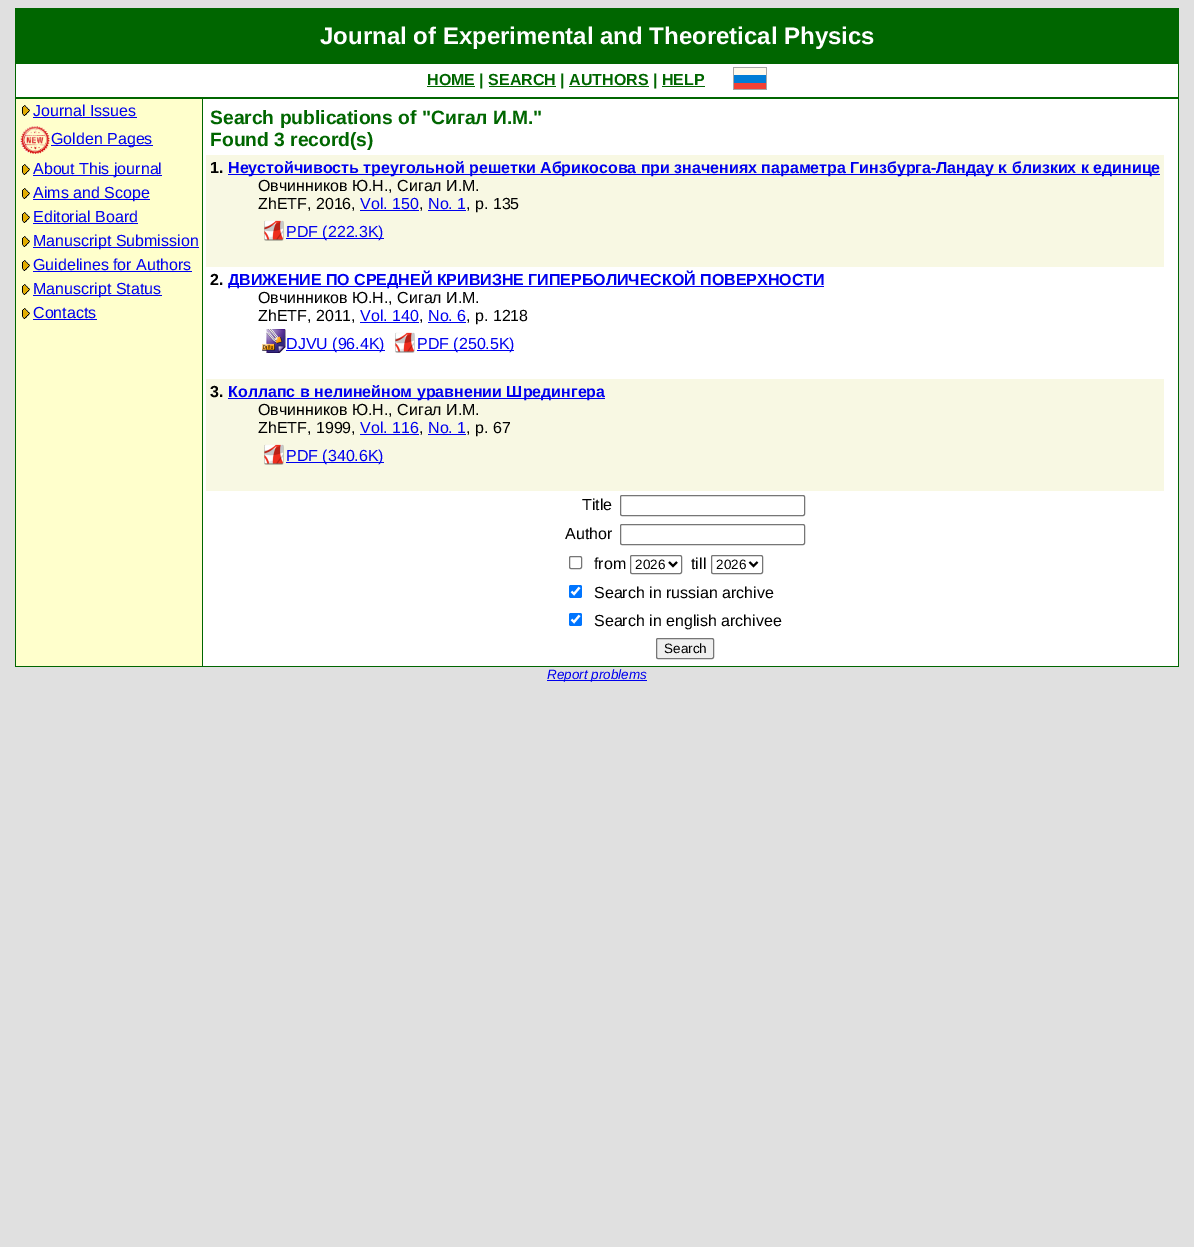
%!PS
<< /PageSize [1194 1247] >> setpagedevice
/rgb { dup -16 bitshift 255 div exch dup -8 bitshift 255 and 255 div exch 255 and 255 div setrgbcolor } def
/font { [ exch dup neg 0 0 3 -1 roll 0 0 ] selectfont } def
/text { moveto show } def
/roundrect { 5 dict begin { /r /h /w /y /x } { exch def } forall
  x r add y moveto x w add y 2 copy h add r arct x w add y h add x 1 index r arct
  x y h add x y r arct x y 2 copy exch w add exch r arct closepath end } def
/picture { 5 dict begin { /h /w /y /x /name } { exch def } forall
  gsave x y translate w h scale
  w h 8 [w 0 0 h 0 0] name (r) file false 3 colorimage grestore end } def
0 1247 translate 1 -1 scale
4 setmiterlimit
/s1 { /LiberationSans-Bold 24 font 16#FFFFFF rgb } def
/s2 { /LiberationSans-Bold 16 font 16#006600 rgb } def
/s3 { /LiberationSans-Regular 16 font 16#0000EE rgb } def
/s4 { /LiberationSans-Bold 19.25 font 16#006600 rgb } def
/s5 { /LiberationSans-Bold 16 font 16#000000 rgb } def
/s6 { /LiberationSans-Bold 16 font 16#0000EE rgb } def
/s7 { /LiberationSans-Regular 16 font 16#000000 rgb } def
/s8 { /LiberationSans-Regular 13.5 font 16#000000 rgb } def
/s9 { /LiberationSans-Italic 13.5 font 16#0000EE rgb } def
16#E0E0E0 rgb
0 0 1194 1247 rectfill
16#006600 rgb
15 8 1164 659 rectfill
16#FFFFFF rgb
16 64 1162 602 rectfill
s1
(Journal of Experimental and Theoretical Physics) 320 44 text
16#006600 rgb
427 86 48 1 rectfill
s2
(HOME | SEARCH | AUTHORS | HELP) 427 85 text
489 86 67 1 rectfill
569 86 80 1 rectfill
662 86 43 1 rectfill
(pic1.raw) 733 67 34 23 picture
16 97 1162 2 rectfill
16#FFFFCC rgb
16 99 186 567 rectfill
(pic2.raw) 21 105 9 11 picture
s3
(Journal Issues) 33 116 text
33 117 104 1 rectfill
(pic3.raw) 19 126 31 28 picture
51 145 102 1 rectfill
(Golden Pages) 51 144 text
(pic2.raw) 21 164 9 11 picture
33 175 129 1 rectfill
(About This journal) 33 174 text
(pic2.raw) 21 188 9 11 picture
33 199 117 1 rectfill
(Aims and Scope) 33 198 text
(pic2.raw) 21 212 9 11 picture
(Editorial Board) 33 222 text
33 223 105 1 rectfill
(pic2.raw) 21 236 9 11 picture
33 247 166 1 rectfill
(Manuscript Submission) 33 246 text
(pic2.raw) 21 260 9 11 picture
(Guidelines for Authors) 33 270 text
33 271 159 1 rectfill
(pic2.raw) 21 284 9 11 picture
33 295 129 1 rectfill
(Manuscript Status) 33 294 text
(pic2.raw) 21 308 9 11 picture
(Contacts) 33 318 text
33 319 64 1 rectfill
16#006600 rgb
202 99 1 567 rectfill
s4
(Search publications of "Сигал И.М.") 210 124 text
(Found 3 record\(s\)) 210 146 text
16#F8F8E3 rgb
206 155 958 112 rectfill
s5
(1.) 210 173 text
16#0000EE rgb
228 174 932 1 rectfill
(Неустойчивость треугольной решетки Абрикосова при значениях параметра Гинзбурга-Ландау κ близких к единице) 228 173 text
s7
(Овчинников Ю.Н., Сигал И.М.) 258 191 text
(ZhETF, 2016,) 258 209 text
s3
(Vol. 150) 360 209 text
360 210 59 1 rectfill
s7
(,) 419 209 text
s3
(No. 1) 428 209 text
428 210 38 1 rectfill
s7
(, p. 135) 466 209 text
(pic4.raw) 264 220 20 21 picture
16#0000EE rgb
286 238 98 1 rectfill
(PDF \(222.3K\)) 286 237 text
s5
(2.) 210 285 text
16#0000EE rgb
228 286 596 1 rectfill
(ДВИЖЕНИЕ ПО СРЕДНЕЙ КРИВИЗНЕ ГИПЕРБОЛИЧЕСКОЙ ПОВЕРХНОСТИ) 228 285 text
s7
(Овчинников Ю.Н., Сигал И.М.) 258 303 text
(ZhETF, 2011,) 258 321 text
s3
(Vol. 140) 360 321 text
360 322 59 1 rectfill
s7
(,) 419 321 text
s3
(No. 6) 428 321 text
428 322 38 1 rectfill
s7
(, p. 1218) 466 321 text
(pic5.raw) 262 329 24 24 picture
16#0000EE rgb
286 350 99 1 rectfill
(DJVU \(96.4K\)) 286 349 text
(pic6.raw) 395 332 20 21 picture
417 350 97 1 rectfill
(PDF \(250.5K\)) 417 349 text
16#F8F8E3 rgb
206 379 958 112 rectfill
s5
(3.) 210 397 text
16#0000EE rgb
228 398 377 1 rectfill
(Коллапс в нелинейном уравнении Шредингера) 228 397 text
s7
(Овчинников Ю.Н., Сигал И.М.) 258 415 text
(ZhETF, 1999,) 258 433 text
s3
(Vol. 116) 360 433 text
360 434 59 1 rectfill
s7
(,) 419 433 text
s3
(No. 1) 428 433 text
428 434 38 1 rectfill
s7
(, p. 67) 466 433 text
(pic4.raw) 264 444 20 21 picture
16#0000EE rgb
286 462 98 1 rectfill
(PDF \(340.6K\)) 286 461 text
s7
(Title) 582 510 text
16#767676 rgb
620.5 495.5 184 20 1.5 roundrect stroke
s7
(Author) 565 539 text
16#767676 rgb
620.5 524.5 184 20 1.5 roundrect stroke
569.5 556.5 12 12 1.5 roundrect stroke
s7
(from) 594 569 text
16#767676 rgb
630.5 555.5 51 18 1.5 roundrect stroke
16#000000 rgb
2 setlinewidth
669 562 moveto 673 566 lineto 677 562 lineto stroke
s8
(2026) 635 569 text
s7
(till) 691 569 text
16#767676 rgb
1 setlinewidth
711.5 555.5 51 18 1.5 roundrect stroke
16#000000 rgb
2 setlinewidth
749.5 562 moveto 753.5 566 lineto 757.5 562 lineto stroke
s8
(2026) 716 569 text
16#0075FF rgb
569 585 13 13 2 roundrect fill
16#FFFFFF rgb
2.1 setlinewidth
571.5 591.5 moveto 574 594 lineto 579.5 587.5 lineto stroke
s7
(Search in russian archive) 594 598 text
16#0075FF rgb
569 613 13 13 2 roundrect fill
16#FFFFFF rgb
571.5 619.5 moveto 574 622 lineto 579.5 615.5 lineto stroke
s7
(Search in english archiveе) 594 626 text
16#EFEFEF rgb
656.5 638.5 57 20 1.5 roundrect gsave fill grestore
16#767676 rgb
1 setlinewidth
stroke
s8
(Search) 664 653 text
16#0000EE rgb
547 680 100 1 rectfill
s9
(Report problems) 547 679 text
showpage
